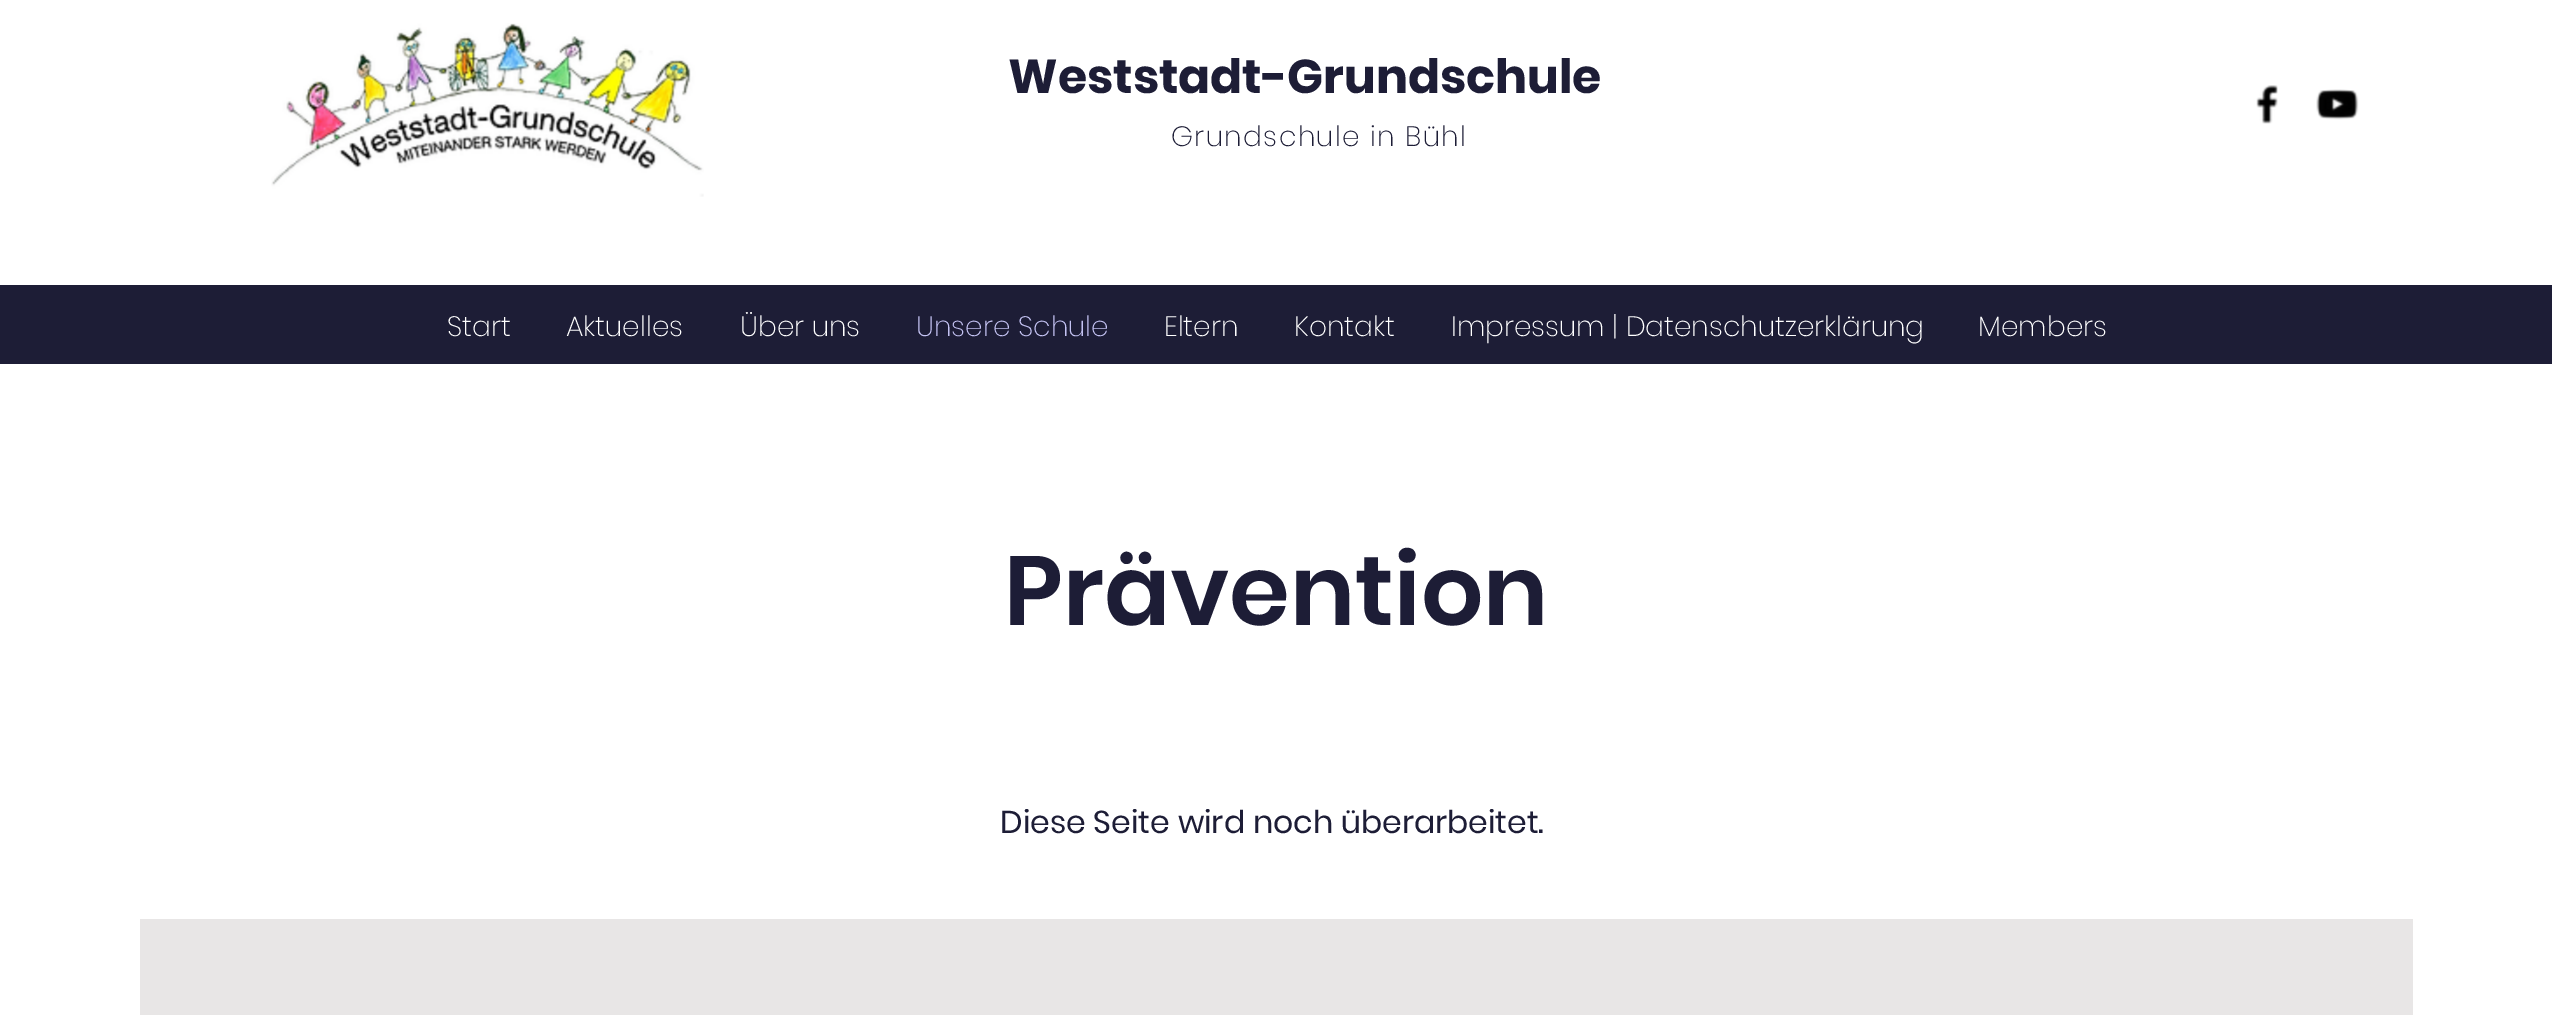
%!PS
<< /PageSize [2552 1015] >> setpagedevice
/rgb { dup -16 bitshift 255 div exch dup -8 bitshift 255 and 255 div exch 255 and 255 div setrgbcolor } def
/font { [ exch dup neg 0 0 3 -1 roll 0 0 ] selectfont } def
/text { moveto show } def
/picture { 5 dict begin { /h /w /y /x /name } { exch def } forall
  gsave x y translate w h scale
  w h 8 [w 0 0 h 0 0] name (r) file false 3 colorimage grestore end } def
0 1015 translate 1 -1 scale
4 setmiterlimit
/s1 { /Poppins-Bold 47.25 font 16#1D1D36 rgb } def
/s2 { /Poppins-ExtraLight 28 font 16#FFFFFF rgb } def
/s3 { /Poppins-ExtraLight 28 font 16#C4C3F3 rgb } def
/s4 { /Poppins-SemiBold 98 font 16#1D1D36 rgb } def
/s5 { /Poppins-Regular 31.5 font 16#1D1D36 rgb } def
16#FFFFFF rgb
0 0 2552 1015 rectfill
(pic1.raw) 271 23 433 174 picture
s1
(Weststadt-Grundschule) 1008 93 text
/Poppins-ExtraLight 28 font
1171 146 moveto 1.4 0 (Grundschule in Bühl) ashow
(pic2.raw) 2256 85 22 39 picture
(pic3.raw) 2316 89 43 31 picture
0 285 2552 79 rectfill
s2
(Start) 447 336 text
(Aktuelles) 566 336 text
(Über uns) 740 336 text
s3
(Unsere Schule) 916 336 text
s2
(Eltern) 1164 336 text
(Kontakt) 1294 336 text
(Impressum | Datenschutzerklärung) 1451 336 text
(Members) 1978 336 text
s4
(Prävention) 1004 625 text
s5
(Diese Seite wird noch überarbeitet.) 1000 833 text
16#E8E6E6 rgb
140 919 2273 96 rectfill
showpage
